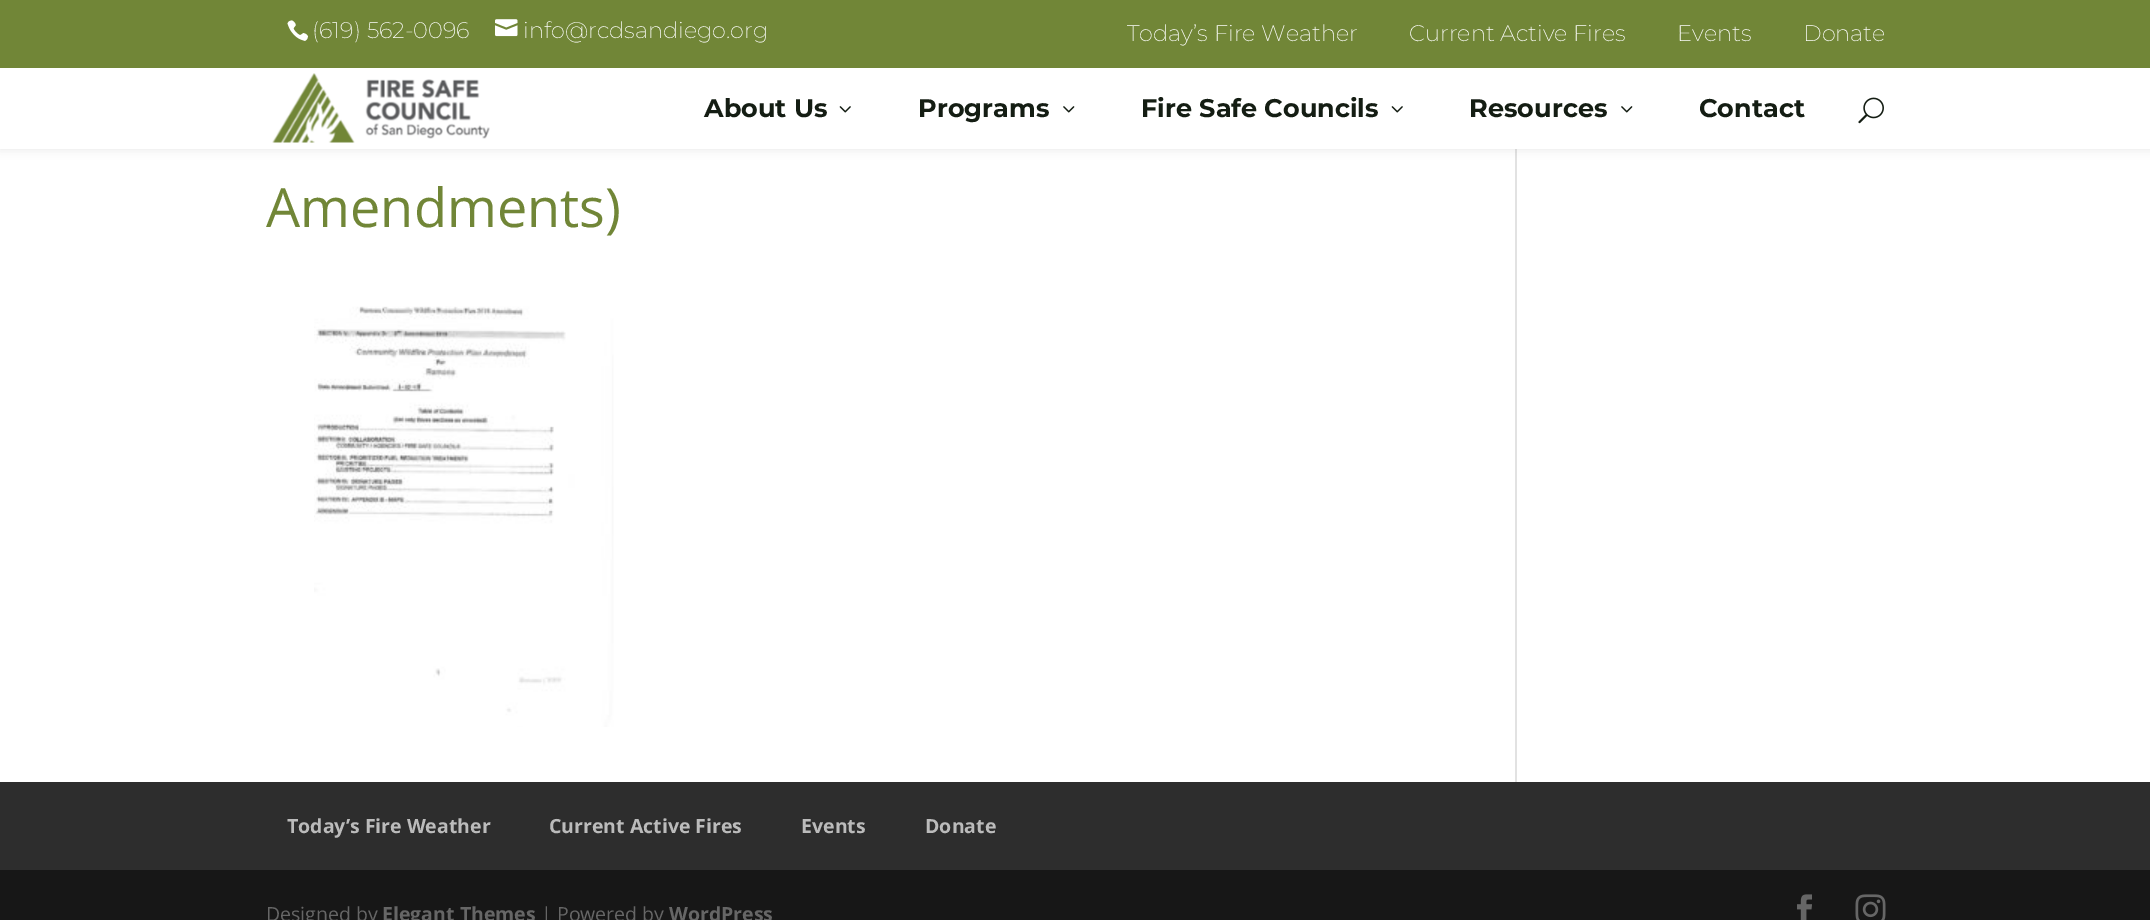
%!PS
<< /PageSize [2150 920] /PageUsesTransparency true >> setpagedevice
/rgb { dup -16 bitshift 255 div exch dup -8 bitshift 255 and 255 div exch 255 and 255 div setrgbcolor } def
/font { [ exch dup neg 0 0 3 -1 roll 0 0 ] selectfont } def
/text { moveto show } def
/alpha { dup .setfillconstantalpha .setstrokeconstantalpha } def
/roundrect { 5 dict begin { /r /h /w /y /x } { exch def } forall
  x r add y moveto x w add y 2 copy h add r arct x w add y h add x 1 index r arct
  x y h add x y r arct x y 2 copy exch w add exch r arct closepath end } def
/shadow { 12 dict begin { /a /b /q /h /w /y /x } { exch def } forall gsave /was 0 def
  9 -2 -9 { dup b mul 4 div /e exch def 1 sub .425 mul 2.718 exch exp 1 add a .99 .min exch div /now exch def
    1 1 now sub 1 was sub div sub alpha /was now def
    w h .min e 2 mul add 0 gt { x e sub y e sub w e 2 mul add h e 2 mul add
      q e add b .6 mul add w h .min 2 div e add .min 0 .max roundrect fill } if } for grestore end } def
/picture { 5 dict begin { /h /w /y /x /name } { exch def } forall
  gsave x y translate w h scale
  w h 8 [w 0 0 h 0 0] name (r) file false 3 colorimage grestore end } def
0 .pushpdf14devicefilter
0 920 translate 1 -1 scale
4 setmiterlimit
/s1 { /Montserrat-ExtraLight 22.5 font 16#FFFFFF rgb } def
/s2 { /Montserrat-Bold 25.5 font 16#141D13 rgb } def
/s3 { /OpenSans-Regular 54 font 16#718637 rgb } def
/s4 { /OpenSans-Bold 19.5 font 16#BBBBBB rgb } def
/s5 { /OpenSans-Regular 19.5 font 16#666666 rgb } def
/s6 { /OpenSans-Bold 19.5 font 16#666666 rgb } def
16#FFFFFF rgb
0 0 2150 920 rectfill
16#E2E2E2 rgb
1515 149 2 633 rectfill
16#000000 rgb
0 68 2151 81 0 5 0.1 shadow
16#718637 rgb
0 0 2150 68 rectfill
(pic1.raw) 287 20 22 21 picture
s1
(\(619\) 562-0096) 312 38 text
(pic2.raw) 495 19 23 18 picture
(info@rcdsandiego.org) 523 38 text
(Today’s Fire Weather) 1127 41 text
(Current Active Fires) 1409 41 text
(Events) 1677 41 text
(Donate) 1803 41 text
0 68 2150 81 rectfill
(pic3.raw) 272 73 218 70 picture
s2
(About Us) 704 117 text
(pic4.raw) 839 106 12 7 picture
(Programs) 918 117 text
(pic5.raw) 1063 106 12 7 picture
(Fire Safe Councils) 1141 117 text
(pic4.raw) 1391 106 12 7 picture
(Resources) 1469 117 text
(pic5.raw) 1621 106 12 7 picture
(Contact) 1699 117 text
(pic6.raw) 1858 97 26 27 picture
s3
(Amendments\)) 266 227 text
(pic7.raw) 314 306 300 421 picture
16#2D2D2D rgb
0 782 2150 88 rectfill
s4
(Today’s Fire Weather) 287 833 text
(Current Active Fires) 549 833 text
(Events) 801 833 text
(Donate) 925 833 text
16#171717 rgb
0 870 2150 50 rectfill
s5
(Designed by) 266 921 text
s6
(Elegant Themes) 382 921 text
s5
(| Powered by) 541 921 text
s6
(WordPress) 669 921 text
(pic8.raw) 1797 894 15 26 picture
(pic9.raw) 1855 894 31 26 picture
.poppdf14devicefilter showpage
